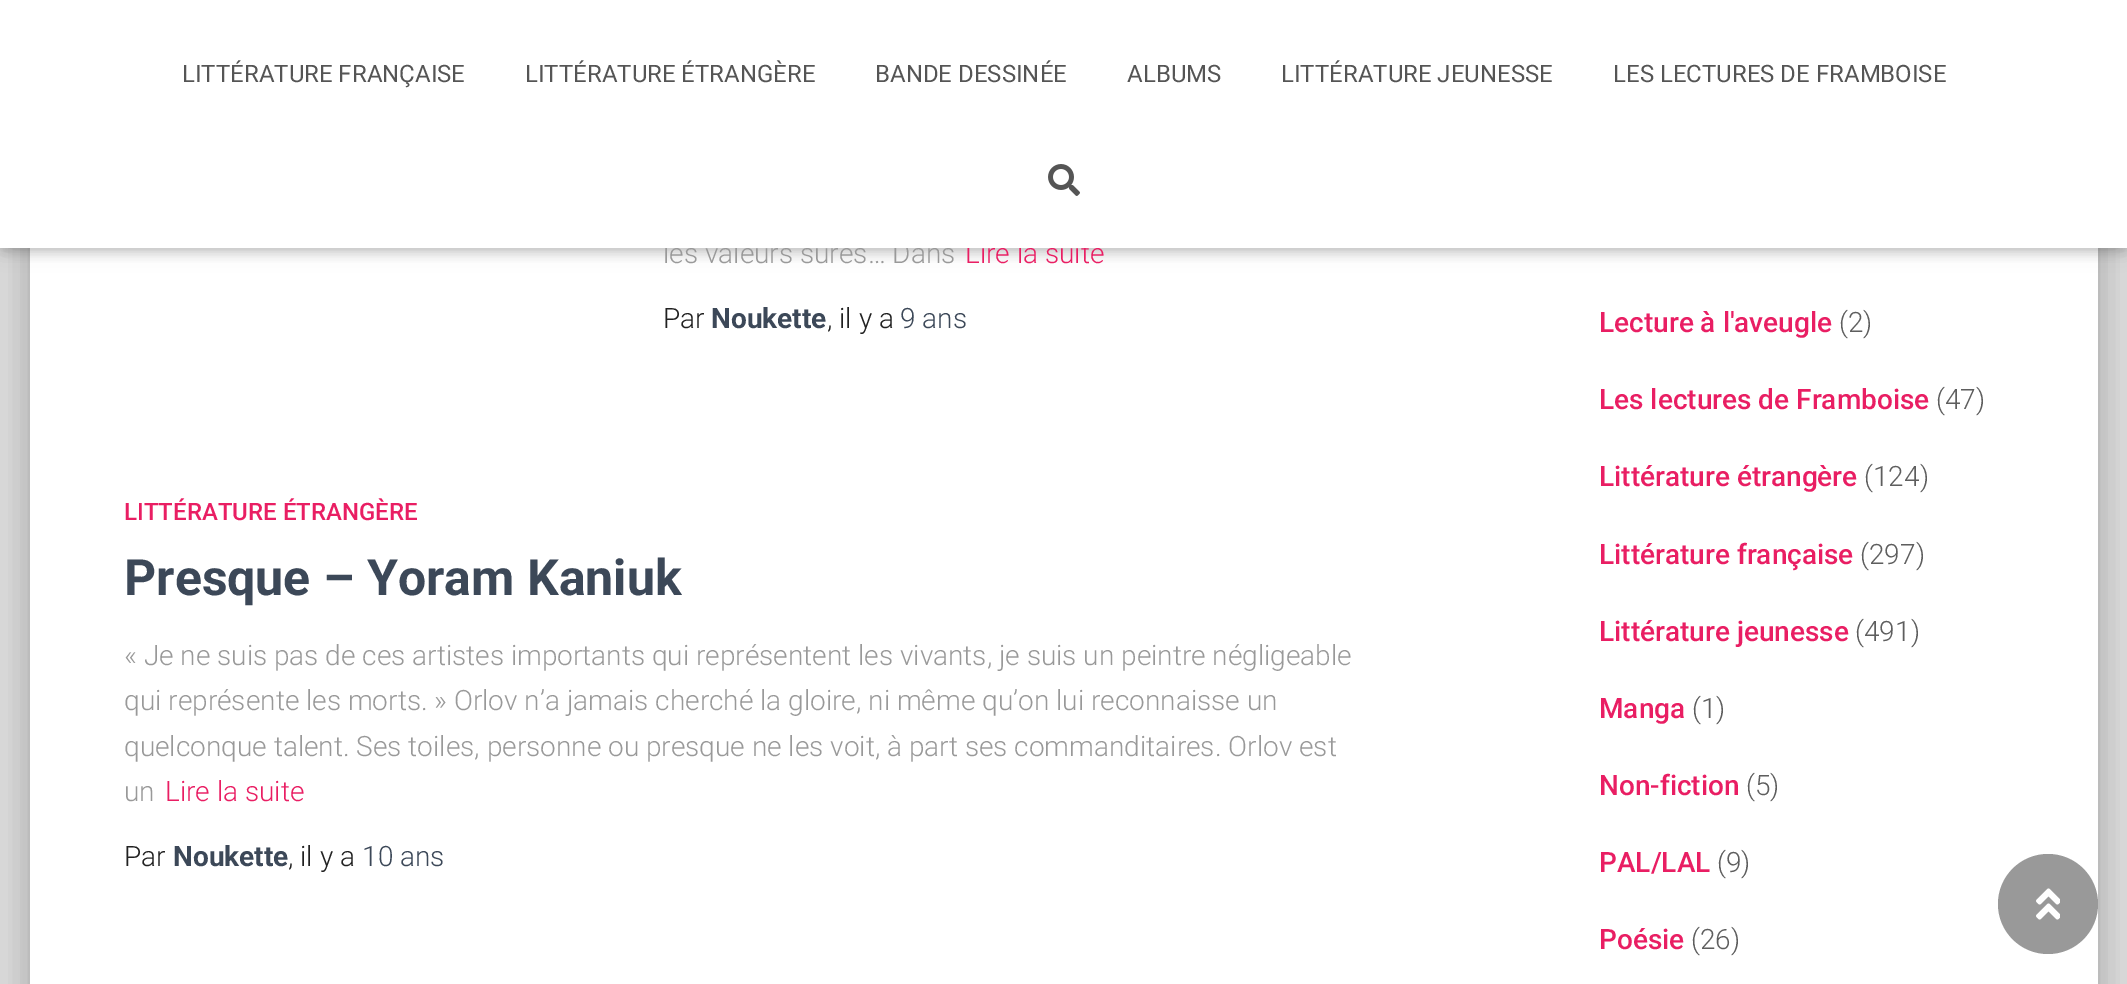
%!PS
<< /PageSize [2127 984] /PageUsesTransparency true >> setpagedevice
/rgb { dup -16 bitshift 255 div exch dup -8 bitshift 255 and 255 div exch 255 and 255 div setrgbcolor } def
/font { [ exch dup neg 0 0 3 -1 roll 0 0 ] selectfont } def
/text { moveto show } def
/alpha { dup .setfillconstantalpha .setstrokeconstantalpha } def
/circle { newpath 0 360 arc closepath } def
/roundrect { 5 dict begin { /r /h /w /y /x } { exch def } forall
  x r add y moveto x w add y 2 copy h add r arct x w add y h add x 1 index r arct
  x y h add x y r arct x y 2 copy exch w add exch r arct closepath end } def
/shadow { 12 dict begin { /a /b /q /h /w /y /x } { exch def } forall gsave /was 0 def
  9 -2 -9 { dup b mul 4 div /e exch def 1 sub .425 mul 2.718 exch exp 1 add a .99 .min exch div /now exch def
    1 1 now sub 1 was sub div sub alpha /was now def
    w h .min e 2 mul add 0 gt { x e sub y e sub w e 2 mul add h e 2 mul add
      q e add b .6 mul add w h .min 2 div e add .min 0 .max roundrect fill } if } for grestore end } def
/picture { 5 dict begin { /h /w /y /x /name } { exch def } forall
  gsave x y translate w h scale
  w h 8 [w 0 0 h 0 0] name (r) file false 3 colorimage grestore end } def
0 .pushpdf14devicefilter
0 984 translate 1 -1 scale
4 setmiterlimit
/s1 { /Roboto-Light 28 font 16#999999 rgb } def
/s2 { /Roboto-Light 28 font 16#E91E63 rgb } def
/s3 { /Roboto-Regular 24 font 16#555555 rgb } def
/s4 { /Roboto-Light 28 font 16#212121 rgb } def
/s5 { /Roboto-Bold 28 font 16#3C4858 rgb } def
/s6 { /Roboto-Light 28 font 16#3C4858 rgb } def
/s7 { /Roboto-Medium 24 font 16#E91E63 rgb } def
/s8 { /Roboto-Bold 50 font 16#3C4858 rgb } def
/s9 { /Roboto-Medium 28 font 16#E91E63 rgb } def
/s10 { /Roboto-Light 28 font 16#5E5E5E rgb } def
16#E5E5E5 rgb
0 0 2127 984 rectfill
16#000000 rgb
40 -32 2048 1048 2 10 0.2 shadow
20 -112 2088 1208 22 30 0.12 shadow
26 -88 2076 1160 16 24 0.14 shadow
16#FFFFFF rgb
30 248 2068 736 rectfill
16#000000 rgb
4 12 2120 240 0 5 0.1 shadow
0 2 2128 248 0 10 0.12 shadow
12 14 2104 224 0 10 0.42 shadow
s1
(les valeurs sûres… Dans) 663 263 text
s2
(Lire la suite) 965 263 text
16#FFFFFF rgb
0 0 2127 248 rectfill
s3
(LITTÉRATURE FRANÇAISE) 182 82 text
(LITTÉRATURE ÉTRANGÈRE) 525 82 text
(BANDE DESSINÉE) 875 82 text
(ALBUMS) 1127 82 text
(LITTÉRATURE JEUNESSE) 1281 82 text
(LES LECTURES DE FRAMBOISE) 1613 82 text
(pic1.raw) 1048 164 32 32 picture
s4
(Par) 663 328 text
s5
(Noukette) 711 328 text
s4
(, il y a) 827 328 text
s6
(9 ans) 900 328 text
s7
(LITTÉRATURE ÉTRANGÈRE) 124 520 text
s8
(Presque – Yoram Kaniuk) 124 595 text
s1
(« Je ne suis pas de ces artistes importants qui représentent les vivants, je suis un peintre négligeable) 124 665 text
(qui représente les morts. » Orlov n’a jamais cherché la gloire, ni même qu’on lui reconnaisse un) 124 710 text
(quelconque talent. Ses toiles, personne ou presque ne les voit, à part ses commanditaires. Orlov est) 124 756 text
(un) 124 801 text
s2
(Lire la suite) 165 801 text
s4
(Par) 124 866 text
s5
(Noukette) 173 866 text
s4
(, il y a) 288 866 text
s6
(10 ans) 362 866 text
s9
(Lecture à l'aveugle) 1599 332 text
s10
(\(2\)) 1839 332 text
s9
(Les lectures de Framboise) 1599 409 text
s10
(\(47\)) 1936 409 text
s9
(Littérature étrangère) 1599 486 text
s10
(\(124\)) 1864 486 text
s9
(Littérature française) 1599 564 text
s10
(\(297\)) 1860 564 text
s9
(Littérature jeunesse) 1599 641 text
s10
(\(491\)) 1855 641 text
s9
(Manga) 1599 718 text
s10
(\(1\)) 1692 718 text
s9
(Non-fiction) 1599 795 text
s10
(\(5\)) 1746 795 text
s9
(PAL/LAL) 1599 872 text
s10
(\(9\)) 1717 872 text
s9
(Poésie) 1599 949 text
s10
(\(26\)) 1691 949 text
16#999999 rgb
2048 904 50 circle fill
(pic2.raw) 2036 888 24 32 picture
.poppdf14devicefilter showpage
